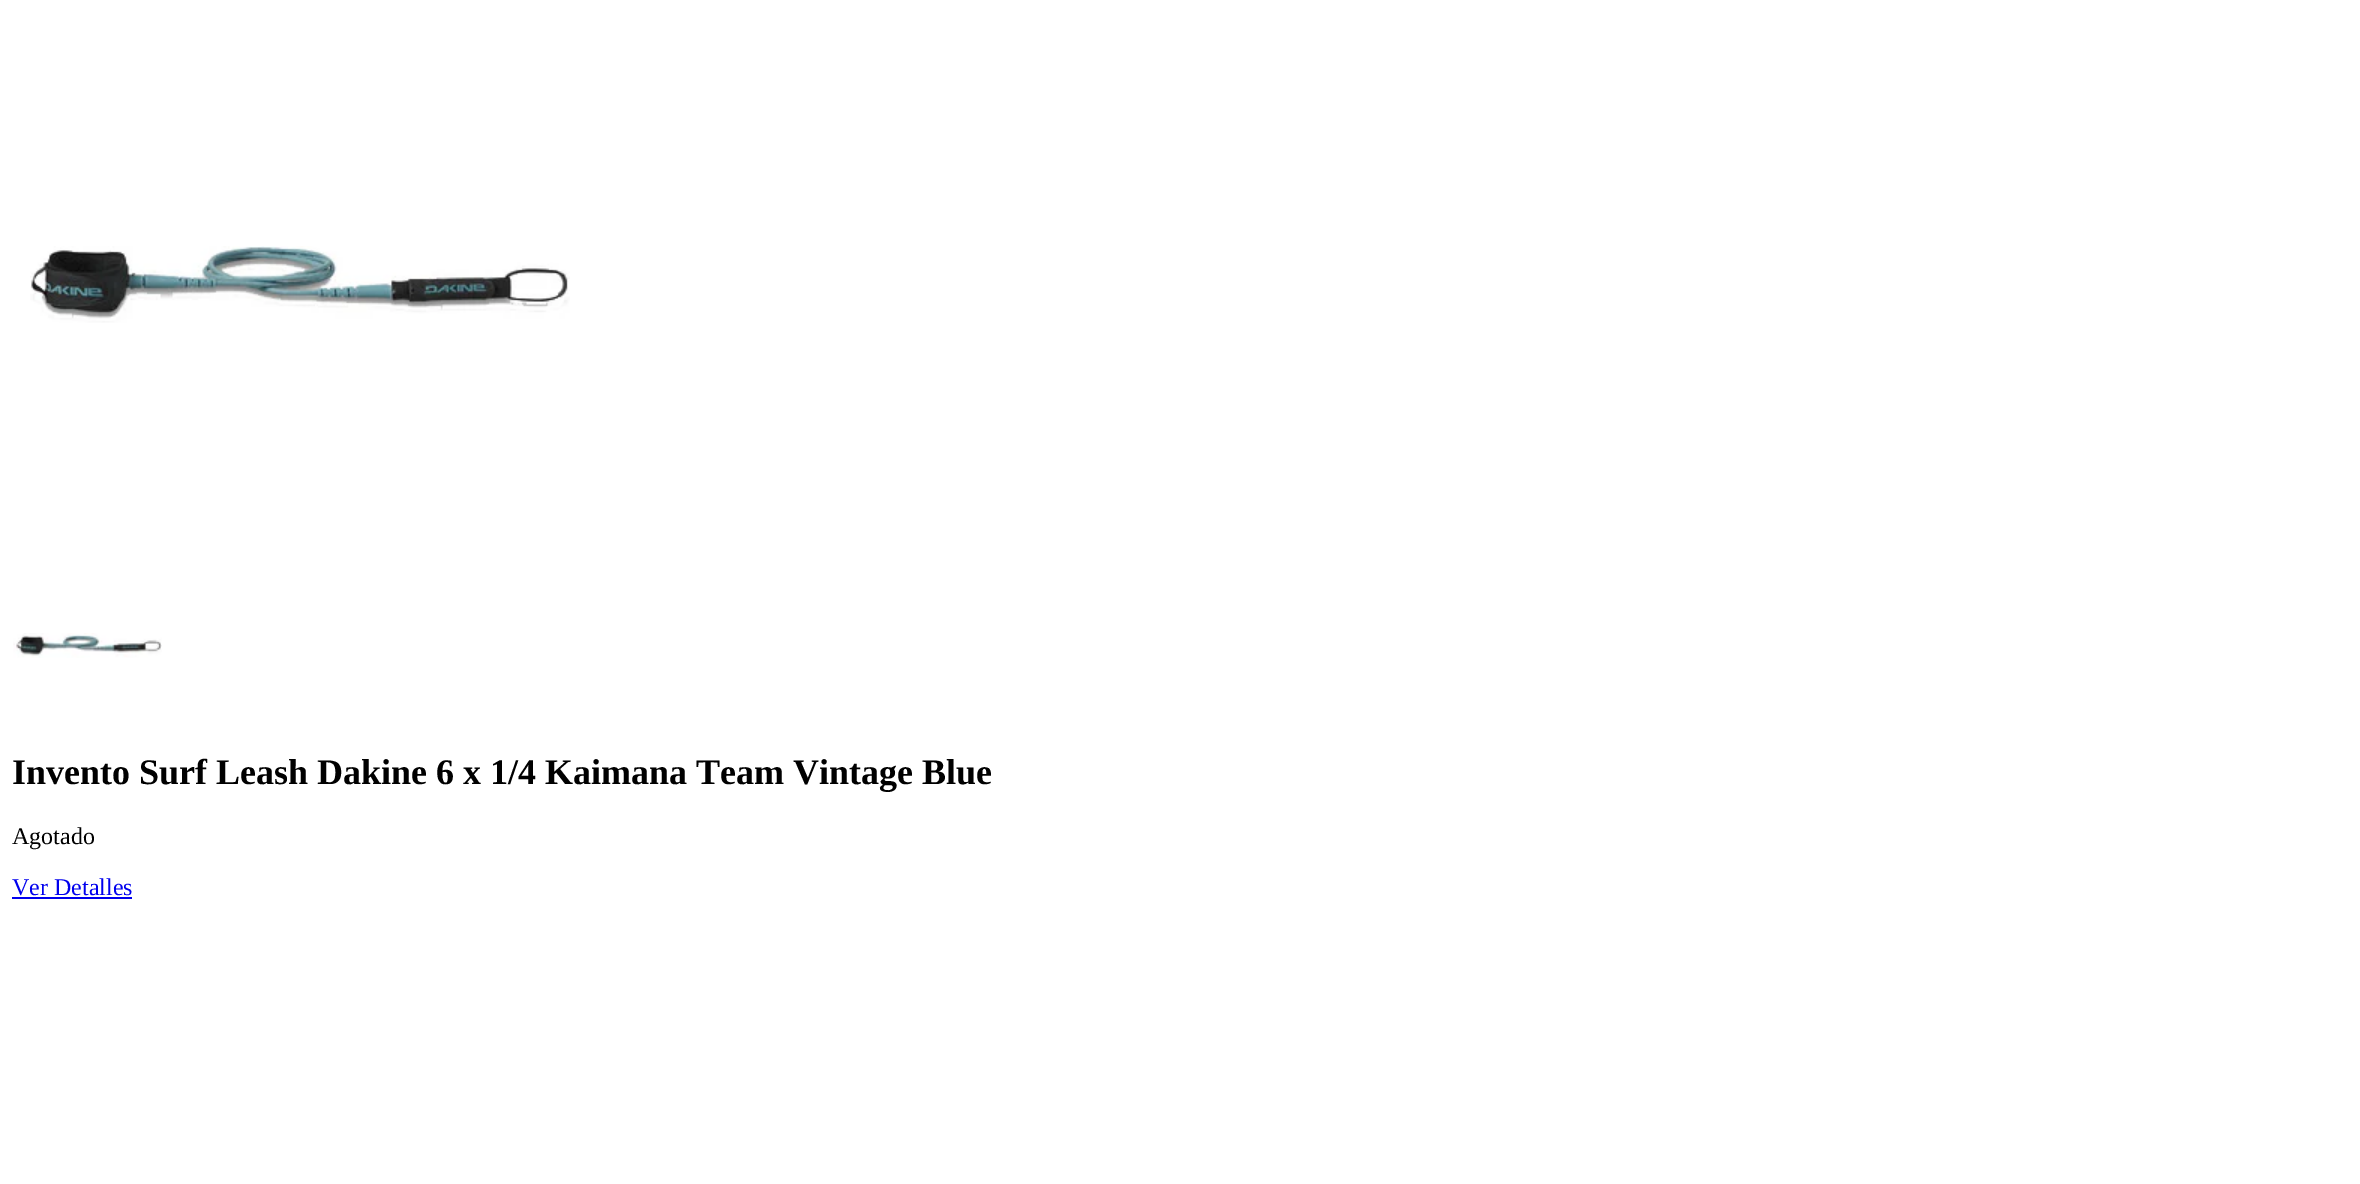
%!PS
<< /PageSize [2360 1184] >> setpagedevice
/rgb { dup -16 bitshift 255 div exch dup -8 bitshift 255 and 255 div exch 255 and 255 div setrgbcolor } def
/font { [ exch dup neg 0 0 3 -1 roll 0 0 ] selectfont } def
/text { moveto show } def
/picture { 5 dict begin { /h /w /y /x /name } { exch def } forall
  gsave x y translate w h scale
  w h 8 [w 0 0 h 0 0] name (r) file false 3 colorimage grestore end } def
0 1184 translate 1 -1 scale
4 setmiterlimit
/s1 { /LiberationSerif-Bold 36 font 16#000000 rgb } def
/s2 { /LiberationSerif-Regular 24 font 16#000000 rgb } def
/s3 { /LiberationSerif-Regular 24 font 16#0000EE rgb } def
16#FFFFFF rgb
0 0 2360 1184 rectfill
(pic1.raw) 30 246 540 77 picture
(pic2.raw) 13 633 149 25 picture
s1
(Invento Surf Leash Dakine 6 x 1/4 Kaimana Team Vintage Blue) 12 784 text
s2
(Agotado) 12 844 text
s3
(Ver Detalles) 12 895 text
12 897 120 2 rectfill
showpage
